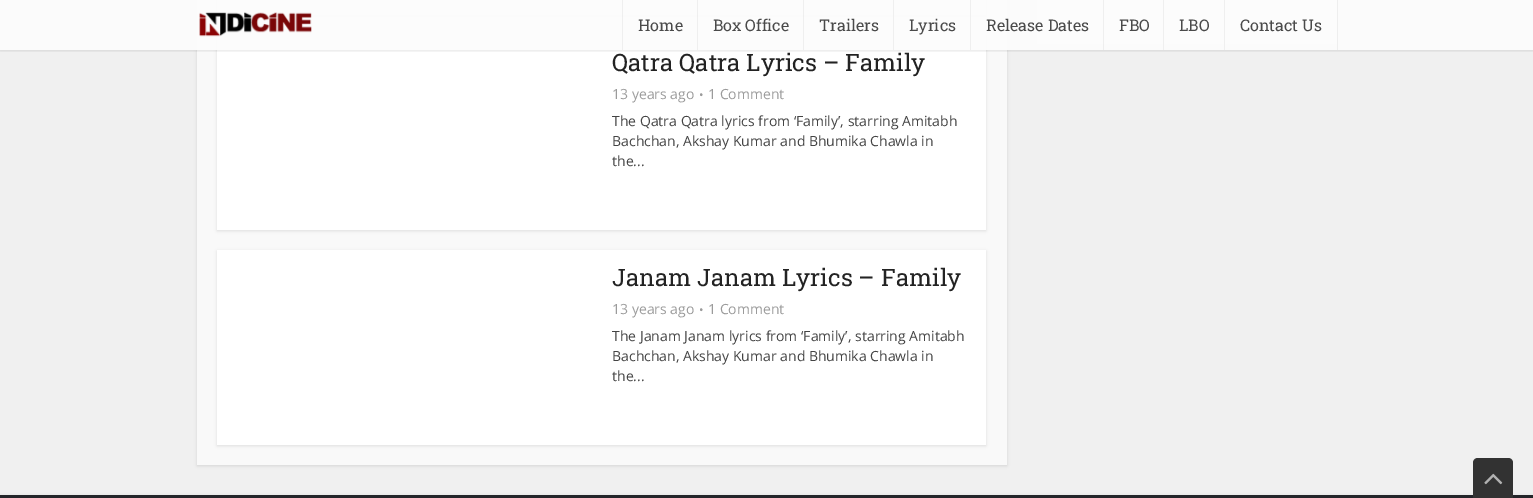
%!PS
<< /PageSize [1533 498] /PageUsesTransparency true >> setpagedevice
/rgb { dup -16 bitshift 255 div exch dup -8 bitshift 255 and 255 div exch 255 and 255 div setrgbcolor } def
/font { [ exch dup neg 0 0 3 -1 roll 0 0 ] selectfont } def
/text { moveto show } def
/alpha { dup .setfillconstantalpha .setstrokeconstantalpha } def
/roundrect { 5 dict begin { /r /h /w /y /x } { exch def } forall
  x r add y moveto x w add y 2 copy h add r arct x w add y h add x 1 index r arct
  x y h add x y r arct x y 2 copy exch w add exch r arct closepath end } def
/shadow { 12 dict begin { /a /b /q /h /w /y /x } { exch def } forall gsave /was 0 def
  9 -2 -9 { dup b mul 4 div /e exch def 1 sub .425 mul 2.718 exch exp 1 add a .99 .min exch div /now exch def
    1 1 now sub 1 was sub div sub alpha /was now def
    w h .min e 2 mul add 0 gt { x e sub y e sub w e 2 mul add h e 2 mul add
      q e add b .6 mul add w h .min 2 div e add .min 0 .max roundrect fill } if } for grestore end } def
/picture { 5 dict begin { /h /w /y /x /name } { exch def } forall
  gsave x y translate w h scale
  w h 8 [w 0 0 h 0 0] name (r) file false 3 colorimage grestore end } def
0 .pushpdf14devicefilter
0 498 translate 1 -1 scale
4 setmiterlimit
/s1 { /RobotoSlab-Regular 16 font 16#4A4A4A rgb } def
/s2 { /RobotoSlab-Regular 24 font 16#232323 rgb } def
/s3 { /OpenSans-Regular 14 font 16#9B9B9B rgb } def
/s4 { /OpenSans-Regular 12 font 16#9B9B9B rgb } def
/s5 { /OpenSans-Regular 14 font 16#444444 rgb } def
16#F0F0F0 rgb
0 0 1533 498 rectfill
16#000000 rgb
1037 -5 300 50 0 1.5 0.1 shadow
16#F9F9F9 rgb
1037 0 300 44 rectfill
16#000000 rgb
197 -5 810 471 0 1.5 0.1 shadow
16#F9F9F9 rgb
197 0 810 465 rectfill
16#000000 rgb
217 -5 769 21 0 1.5 0.1 shadow
16#FFFFFF rgb
217 0 769 15 rectfill
16#000000 rgb
217 36 769 195 0 1.5 0.1 shadow
16#FFFFFF rgb
217 35 769 195 rectfill
gsave
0 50 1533 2 rectclip
16#000000 rgb
0 1 1533 50 0 1.5 0.1 shadow
grestore
0.95 alpha
16#FCFCFC rgb
0 0 1533 50 rectfill
1 alpha
(pic1.raw) 199 12 113 25 picture
0.05 alpha
16#000000 rgb
622 0 1 50 rectfill
1 alpha
s1
(Home) 638 31 text
0.05 alpha
16#000000 rgb
697 0 1 50 rectfill
1 alpha
s1
(Box Office) 713 31 text
0.05 alpha
16#000000 rgb
803 0 1 50 rectfill
1 alpha
s1
(Trailers) 819 31 text
16#EFEFEF rgb
893 0 1 50 rectfill
s1
(Lyrics) 909 31 text
16#EFEFEF rgb
970 0 1 50 rectfill
s1
(Release Dates) 986 31 text
0.05 alpha
16#000000 rgb
1103 0 1 50 rectfill
1 alpha
s1
(FBO) 1119 31 text
16#EFEFEF rgb
1163 0 1 50 rectfill
s1
(LBO) 1179 31 text
16#EEEEEE rgb
1337 0 1 50 rectfill
16#EFEFEF rgb
1224 0 1 50 rectfill
s1
(Contact Us) 1240 31 text
s2
(Qatra Qatra Lyrics – Family) 612 71 text
s3
(13 years ago) 612 99 text
s4
(•) 699 99 text
s3
(1 Comment) 708 99 text
s5
(The Qatra Qatra lyrics from ‘Family’, starring Amitabh) 612 126 text
(Bachchan, Akshay Kumar and Bhumika Chawla in) 612 146 text
(the...) 612 166 text
16#000000 rgb
217 251 769 195 0 1.5 0.1 shadow
16#FFFFFF rgb
217 250 769 195 rectfill
s2
(Janam Janam Lyrics – Family) 612 286 text
s3
(13 years ago) 612 314 text
s4
(•) 699 314 text
s3
(1 Comment) 708 314 text
s5
(The Janam Janam lyrics from ‘Family’, starring Amitabh) 612 341 text
(Bachchan, Akshay Kumar and Bhumika Chawla in) 612 361 text
(the...) 612 381 text
16#000000 rgb
0 497 1533 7 0 2 0.2 shadow
16#24252A rgb
0 495 1533 3 rectfill
16#323232 rgb
1478 458 moveto 1508 458 lineto 1511 458 1513 460 1513 463 curveto 1513 498 lineto 1473 498 lineto 1473 463 lineto 1473 460 1475 458 1478 458 curveto closepath fill
(pic2.raw) 1484 473 19 12 picture
.poppdf14devicefilter showpage
